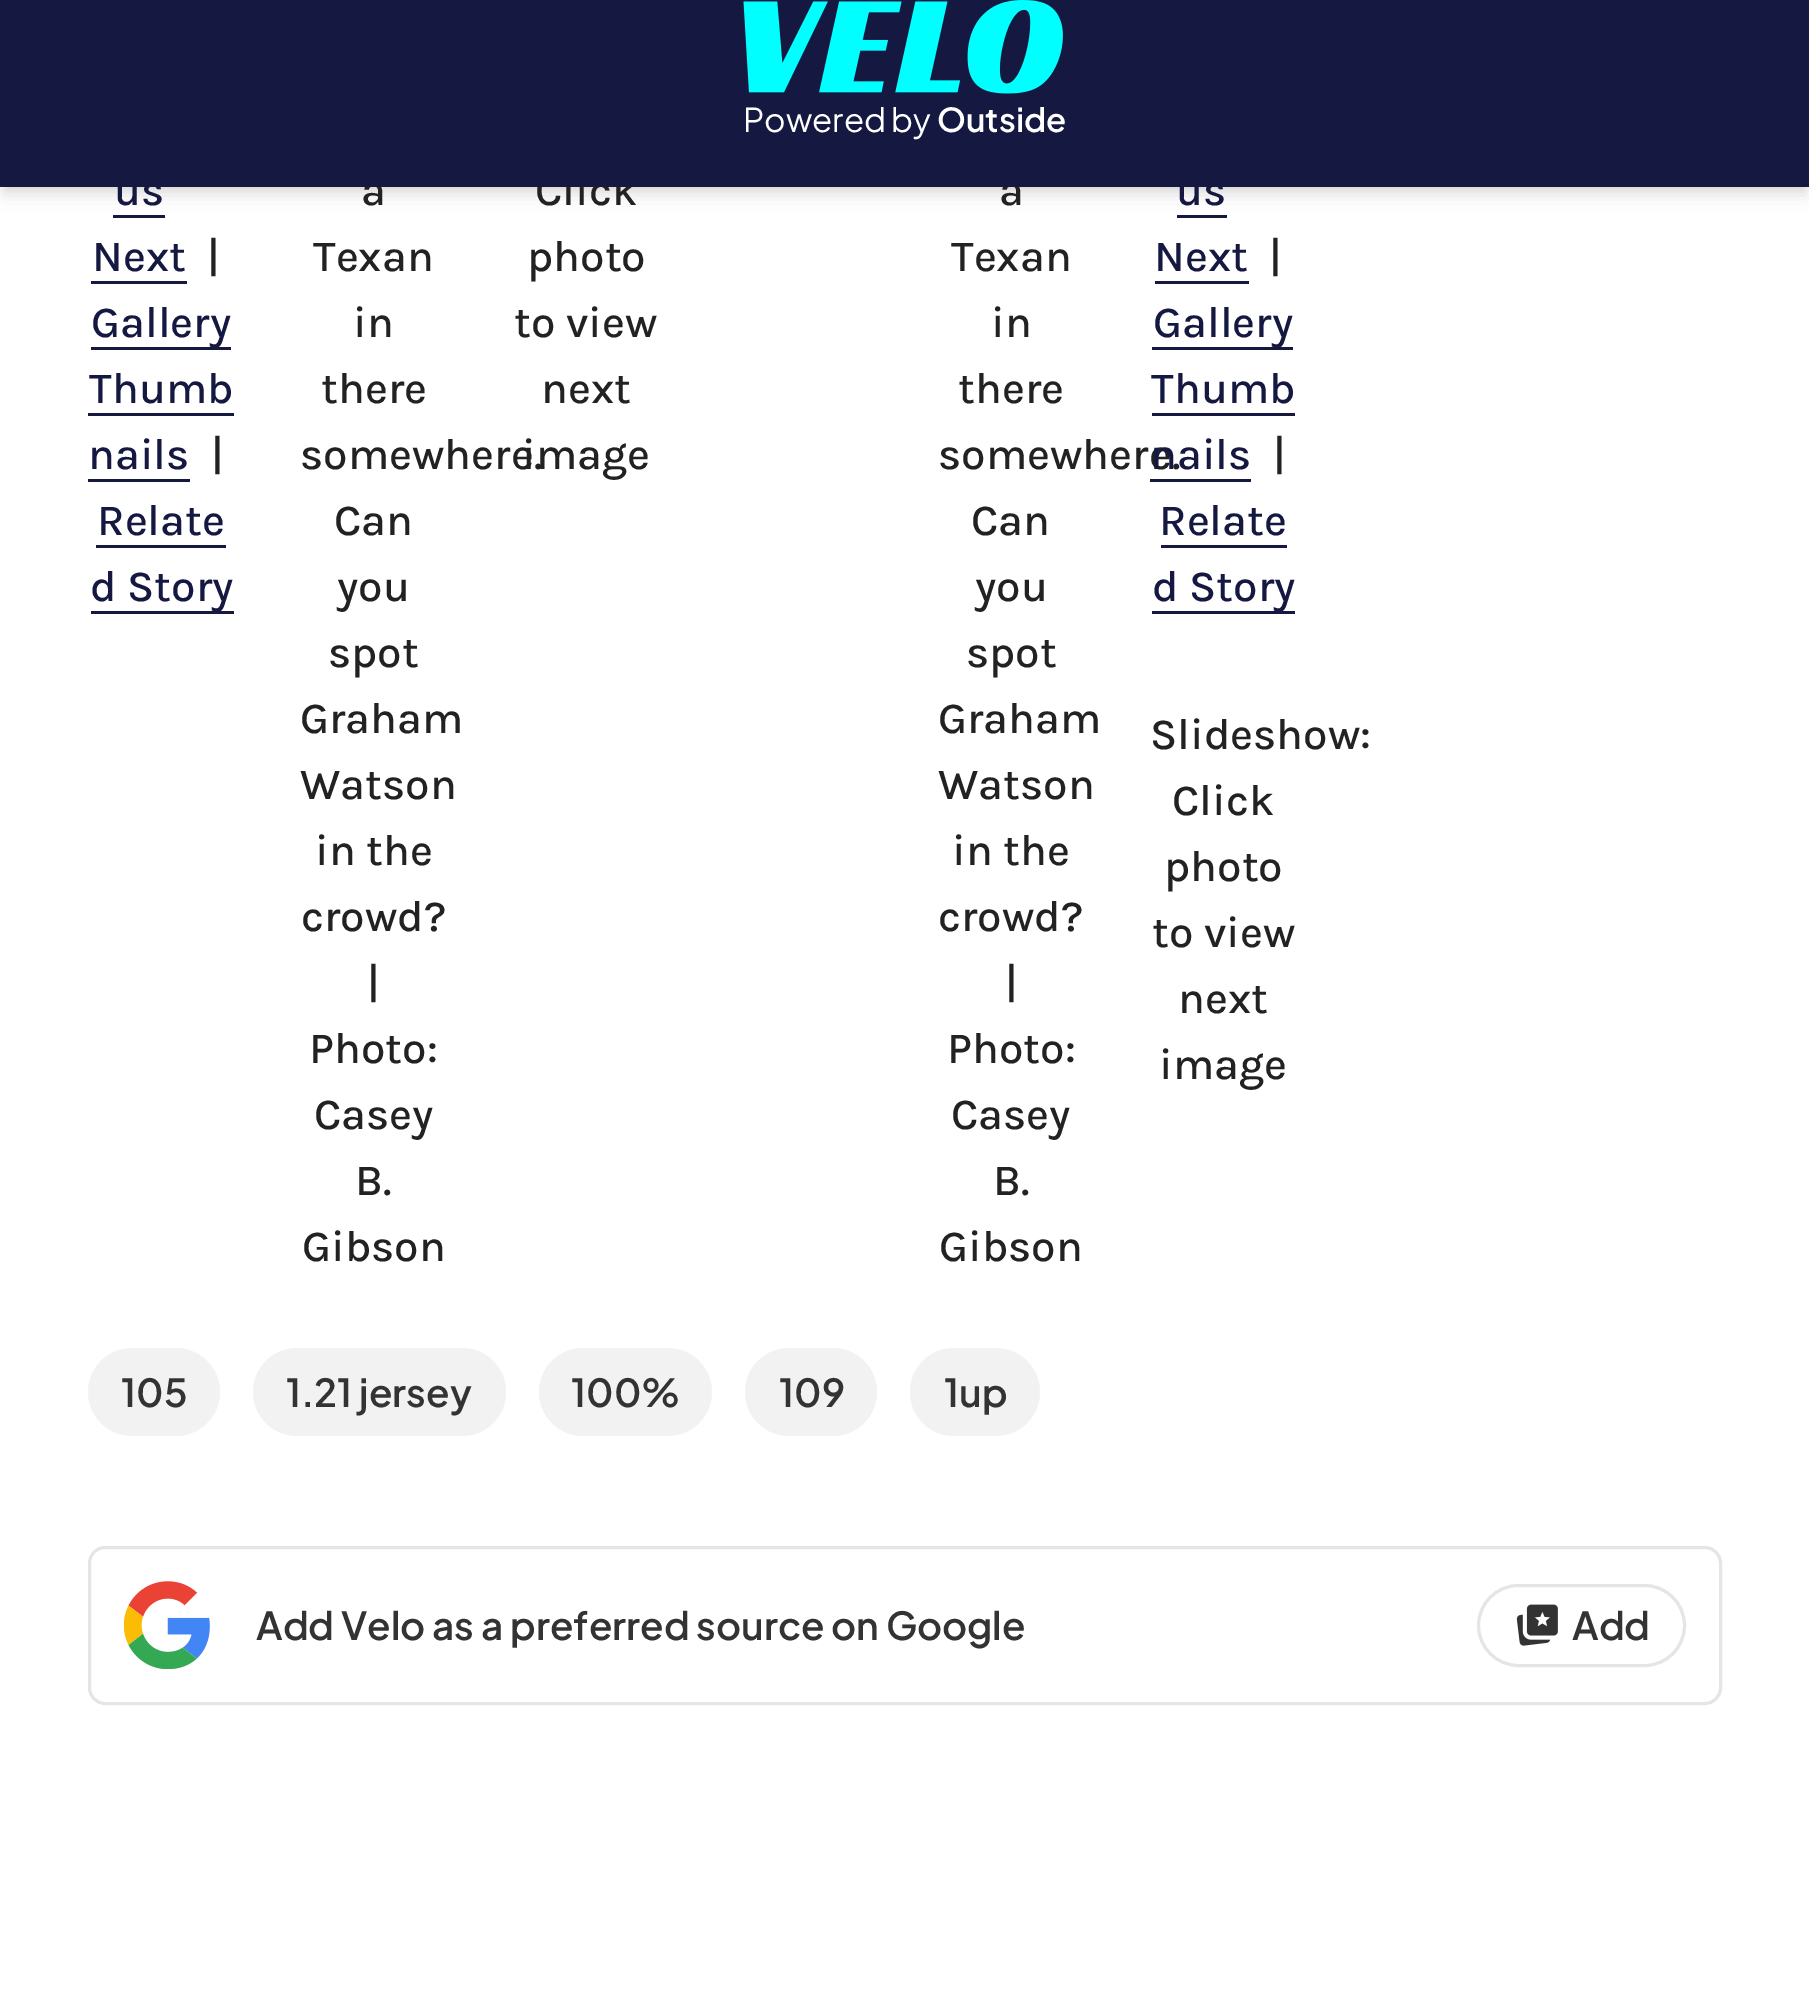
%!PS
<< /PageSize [1809 2010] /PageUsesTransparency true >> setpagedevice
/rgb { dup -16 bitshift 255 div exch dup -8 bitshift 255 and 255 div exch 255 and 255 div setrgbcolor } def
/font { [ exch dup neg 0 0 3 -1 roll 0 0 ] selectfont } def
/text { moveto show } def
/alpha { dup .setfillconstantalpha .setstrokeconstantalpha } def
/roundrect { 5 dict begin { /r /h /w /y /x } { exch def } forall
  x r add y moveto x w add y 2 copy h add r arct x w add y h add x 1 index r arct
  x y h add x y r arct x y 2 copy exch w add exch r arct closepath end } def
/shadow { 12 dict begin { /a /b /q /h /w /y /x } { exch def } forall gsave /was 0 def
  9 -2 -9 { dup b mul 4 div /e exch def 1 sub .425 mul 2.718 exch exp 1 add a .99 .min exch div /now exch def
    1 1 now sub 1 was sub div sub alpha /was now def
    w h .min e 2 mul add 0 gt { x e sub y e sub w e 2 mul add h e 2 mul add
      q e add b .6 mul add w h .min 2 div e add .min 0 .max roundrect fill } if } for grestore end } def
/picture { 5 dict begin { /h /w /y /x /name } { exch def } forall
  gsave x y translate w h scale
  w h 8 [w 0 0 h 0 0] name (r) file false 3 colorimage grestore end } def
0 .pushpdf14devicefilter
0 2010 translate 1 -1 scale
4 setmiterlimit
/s1 { /Karla-Medium 44 font 16#222222 rgb } def
/s2 { /PlusJakartaSans-Regular 33 font 16#FFFFFF rgb } def
/s3 { /PlusJakartaSans-SemiBold 33 font 16#FFFFFF rgb } def
/s4 { /Karla-Medium 44 font 16#151841 rgb } def
/s5 { /PlusJakartaSans-SemiBold 38.5 font 16#333333 rgb } def
16#FFFFFF rgb
0 0 1809 2010 rectfill
16#000000 rgb
6 11 1798 176 0 5.5 0.1 shadow
16#151841 rgb
113 215 52 3 rectfill
1177 215 50 3 rectfill
16#000000 rgb
3 14 1804 181 0 8 0.1 shadow
s1
(a) 361 205 text
(Click) 535 205 text
(a) 999 205 text
16#151841 rgb
0 0 1809 187 rectfill
(pic1.raw) 743 0 320 94 picture
s2
(Powered by) 743 132 text
s3
(Outside) 937 132 text
s4
(us) 114 205 text
(Next) 92 271 text
91 281 96 3 rectfill
s1
(|) 207 271 text
16#151841 rgb
91 347 140 3 rectfill
(Gallery) 91 337 text
(Thumb) 89 403 text
88 413 146 3 rectfill
(nails) 88 469 text
88 479 102 3 rectfill
s1
(|) 211 469 text
s4
(Relate) 97 535 text
96 545 130 3 rectfill
91 611 143 3 rectfill
(d Story) 90 601 text
s1
(Texan) 313 271 text
(in) 353 337 text
(there) 321 403 text
(somewhere.) 300 469 text
(Can) 334 535 text
(you) 337 601 text
(spot) 328 667 text
(Graham) 300 733 text
(Watson) 300 799 text
(in the) 315 865 text
(crowd?) 301 931 text
(|) 367 997 text
(Photo:) 309 1063 text
(Casey) 314 1129 text
(B.) 355 1195 text
(Gibson) 302 1261 text
(photo) 527 271 text
(to view) 514 337 text
(next) 541 403 text
(image) 522 469 text
(Texan) 951 271 text
(in) 991 337 text
(there) 958 403 text
(somewhere.) 938 469 text
(Can) 971 535 text
(you) 975 601 text
(spot) 966 667 text
(Graham) 938 733 text
(Watson) 938 799 text
(in the) 952 865 text
(crowd?) 938 931 text
(|) 1005 997 text
(Photo:) 947 1063 text
(Casey) 951 1129 text
(B.) 993 1195 text
(Gibson) 939 1261 text
s4
(us) 1176 205 text
(Next) 1154 271 text
1155 281 94 3 rectfill
s1
(|) 1269 271 text
16#151841 rgb
1152 347 141 3 rectfill
(Gallery) 1153 337 text
(Thumb) 1151 403 text
1152 413 143 3 rectfill
(nails) 1150 469 text
1150 479 101 3 rectfill
s1
(|) 1273 469 text
s4
(Relate) 1159 535 text
1161 545 126 3 rectfill
1152 611 143 3 rectfill
(d Story) 1152 601 text
s1
(Slideshow:) 1150 749 text
(Click) 1172 815 text
(photo) 1164 881 text
(to view) 1152 947 text
(next) 1178 1013 text
(image) 1159 1079 text
16#F2F2F2 rgb
88 1348 132 88 44 roundrect fill
s5
(105) 121 1407 text
16#F2F2F2 rgb
253 1348 253 88 44 roundrect fill
s5
(1.21 jersey) 286 1407 text
16#F2F2F2 rgb
539 1348 173 88 44 roundrect fill
s5
(100%) 571 1407 text
16#F2F2F2 rgb
745 1348 132 88 44 roundrect fill
s5
(109) 779 1407 text
16#F2F2F2 rgb
910 1348 130 88 44 roundrect fill
s5
(1up) 944 1407 text
16#E5E5E5 rgb
3 setlinewidth
89.5 1547.5 1631 156 15.5 roundrect stroke
(pic2.raw) 124 1581 86 88 picture
s5
(Add Velo as a preferred source on Google) 256 1640 text
16#E5E5E5 rgb
1478.5 1585.5 206 80 40 roundrect stroke
(pic3.raw) 1516 1604 42 42 picture
s5
(Add) 1572 1640 text
.poppdf14devicefilter showpage
